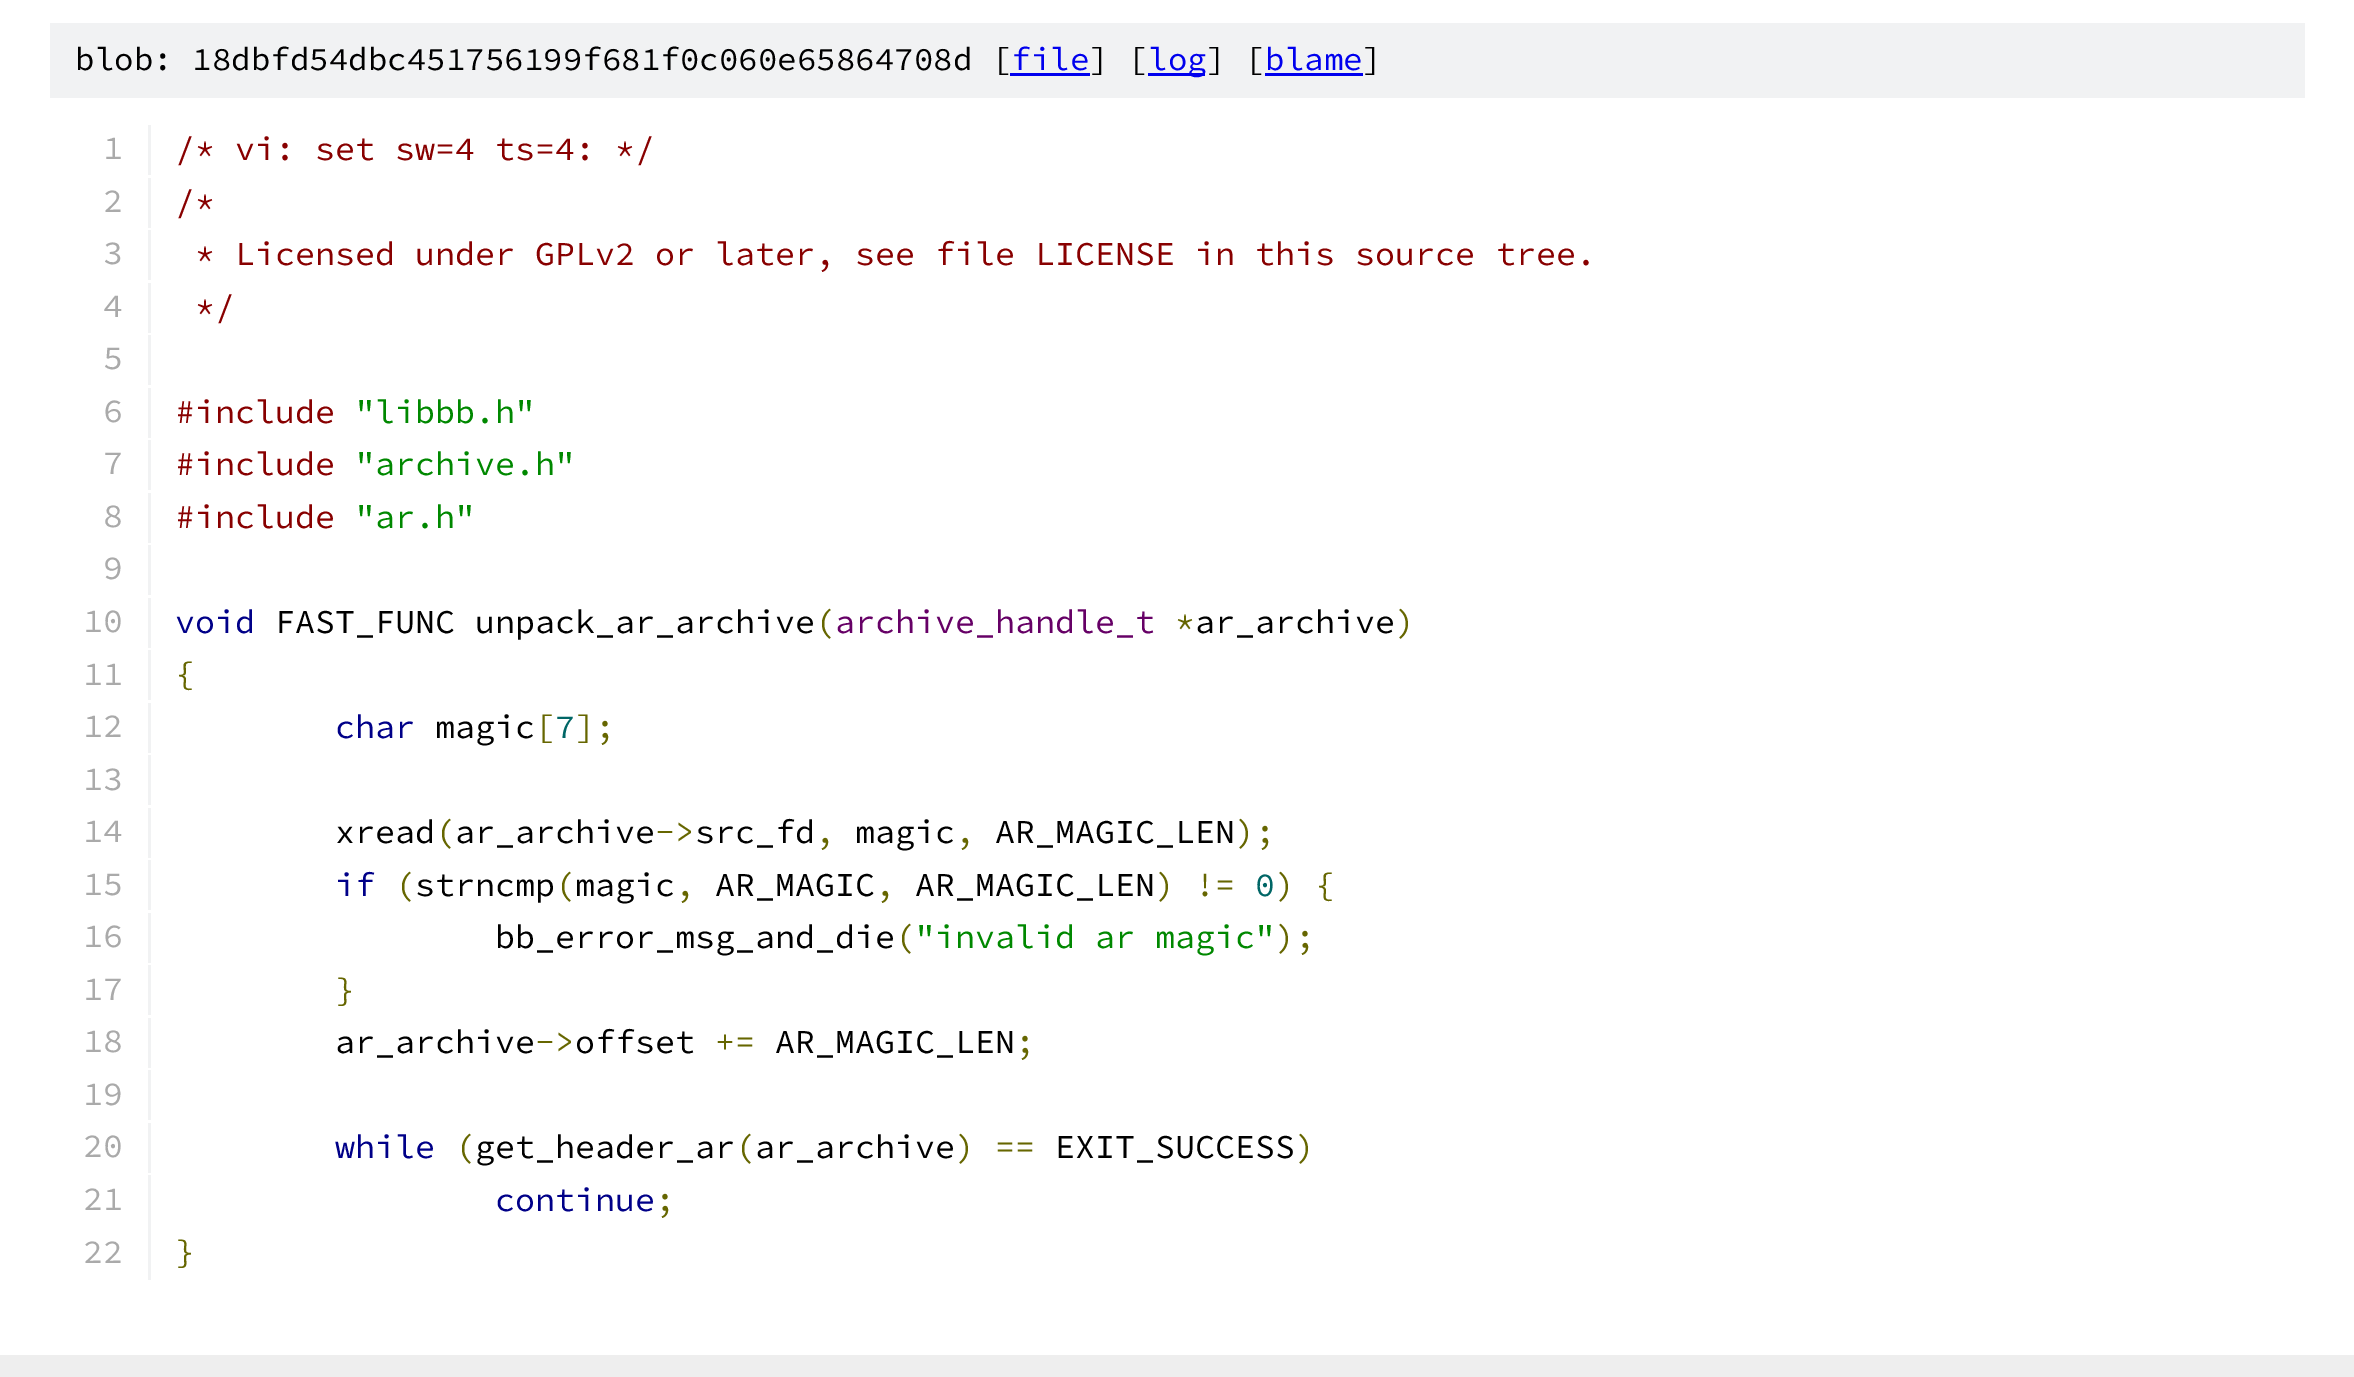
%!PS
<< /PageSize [2354 1377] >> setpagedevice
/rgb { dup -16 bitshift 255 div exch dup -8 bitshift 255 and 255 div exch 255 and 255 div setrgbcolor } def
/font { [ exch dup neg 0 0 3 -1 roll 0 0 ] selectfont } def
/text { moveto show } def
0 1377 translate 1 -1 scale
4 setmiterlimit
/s1 { /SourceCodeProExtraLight-ExtraLight 32.5 font 16#000000 rgb } def
/s2 { /SourceCodeProExtraLight-ExtraLight 32.5 font 16#0000EE rgb } def
/s3 { /SourceCodeProExtraLight-ExtraLight 33.35 font 16#AAAAAA rgb } def
/s4 { /SourceCodeProExtraLight-ExtraLight 33.35 font 16#880000 rgb } def
/s5 { /SourceCodeProExtraLight-ExtraLight 33.35 font 16#008800 rgb } def
/s6 { /SourceCodeProExtraLight-ExtraLight 33.35 font 16#000088 rgb } def
/s7 { /SourceCodeProExtraLight-ExtraLight 33.35 font 16#000000 rgb } def
/s8 { /SourceCodeProExtraLight-ExtraLight 33.35 font 16#666600 rgb } def
/s9 { /SourceCodeProExtraLight-ExtraLight 33.35 font 16#660066 rgb } def
/s10 { /SourceCodeProExtraLight-ExtraLight 33.35 font 16#006666 rgb } def
16#FFFFFF rgb
0 0 2354 1377 rectfill
16#F1F2F3 rgb
50 23 2255 75 rectfill
s1
(blob: 18dbfd54dbc451756199f681f0c060e65864708d [) 75 70 text
s2
(file) 1011 70 text
1010 73 80 3 rectfill
s1
(] [) 1089 70 text
16#0000EE rgb
1148 73 57 3 rectfill
(log) 1148 70 text
s1
(] [) 1206 70 text
s2
(blame) 1265 70 text
1265 73 98 3 rectfill
s1
(]) 1362 70 text
16#F1F2F3 rgb
148 125 3 50 rectfill
s3
(1) 103 159 text
s4
(/* vi: set sw=4 ts=4: */) 175 160 text
16#F1F2F3 rgb
148 178 3 50 rectfill
s3
(2) 103 212 text
s4
(/*) 175 213 text
16#F1F2F3 rgb
148 230 3 50 rectfill
s3
(3) 103 264 text
s4
(* Licensed under GPLv2 or later, see file LICENSE in this source tree.) 195 265 text
16#F1F2F3 rgb
148 283 3 50 rectfill
s3
(4) 103 317 text
s4
(*/) 195 318 text
16#F1F2F3 rgb
148 335 3 50 rectfill
s3
(5) 103 369 text
16#F1F2F3 rgb
148 388 3 50 rectfill
s3
(6) 103 422 text
s4
(#include) 175 423 text
s5
("libbb.h") 355 423 text
16#F1F2F3 rgb
148 440 3 50 rectfill
s3
(7) 103 474 text
s4
(#include) 175 475 text
s5
("archive.h") 355 475 text
16#F1F2F3 rgb
148 493 3 50 rectfill
s3
(8) 103 527 text
s4
(#include) 175 528 text
s5
("ar.h") 355 528 text
16#F1F2F3 rgb
148 545 3 50 rectfill
s3
(9) 103 579 text
16#F1F2F3 rgb
148 598 3 50 rectfill
s3
(10) 83 632 text
s6
(void) 175 633 text
s7
(FAST_FUNC unpack_ar_archive) 275 633 text
s8
(\() 815 633 text
s9
(archive_handle_t) 835 633 text
s8
(*) 1175 633 text
s7
(ar_archive) 1195 633 text
s8
(\)) 1395 633 text
16#F1F2F3 rgb
148 650 3 50 rectfill
s3
(11) 83 685 text
s8
({) 175 685 text
16#F1F2F3 rgb
148 703 3 50 rectfill
s3
(12) 83 737 text
s6
(char) 335 738 text
s7
(magic) 435 738 text
s8
([ ];) 535 738 text
s10
(7) 555 738 text
16#F1F2F3 rgb
148 755 3 50 rectfill
s3
(13) 83 790 text
16#F1F2F3 rgb
148 808 3 50 rectfill
s3
(14) 83 842 text
s7
(xread ar_archive) 335 843 text
s8
(\() 435 843 text
s7
(src_fd) 695 843 text
s8
(\);) 1235 843 text
(->) 655 843 text
s7
(magic) 855 843 text
(AR_MAGIC_LEN) 995 843 text
s8
(,) 815 843 text
(,) 955 843 text
16#F1F2F3 rgb
148 860 3 50 rectfill
s3
(15) 83 895 text
s6
(if) 335 896 text
s8
(\() 395 896 text
s7
(strncmp magic) 415 896 text
s8
(\() 555 896 text
(\) !=) 1155 896 text
(\) {) 1275 896 text
(,) 675 896 text
s7
(AR_MAGIC) 715 896 text
s8
(,) 875 896 text
s7
(AR_MAGIC_LEN) 915 896 text
s10
(0) 1255 896 text
16#F1F2F3 rgb
148 913 3 50 rectfill
s3
(16) 83 947 text
s7
(bb_error_msg_and_die) 495 948 text
s8
(\() 895 948 text
s5
("invalid ar magic") 915 948 text
s8
(\);) 1275 948 text
16#F1F2F3 rgb
148 965 3 50 rectfill
s3
(17) 83 1000 text
s8
(}) 335 1001 text
16#F1F2F3 rgb
148 1018 3 50 rectfill
s3
(18) 83 1052 text
s7
(ar_archive) 335 1053 text
s8
(->) 535 1053 text
s7
(offset) 575 1053 text
s8
(+=) 715 1053 text
s7
(AR_MAGIC_LEN) 775 1053 text
s8
(;) 1015 1053 text
16#F1F2F3 rgb
148 1070 3 50 rectfill
s3
(19) 83 1105 text
16#F1F2F3 rgb
148 1123 3 50 rectfill
s3
(20) 83 1157 text
s6
(while) 335 1158 text
s8
(\() 455 1158 text
s7
(get_header_ar ar_archive) 475 1158 text
s8
(\() 735 1158 text
(\) ==) 955 1158 text
(\)) 1295 1158 text
s7
(EXIT_SUCCESS) 1055 1158 text
16#F1F2F3 rgb
148 1175 3 105 rectfill
s3
(21) 83 1210 text
s6
(continue) 495 1211 text
s8
(;) 655 1211 text
s3
(22) 83 1263 text
s8
(}) 175 1263 text
16#EEEEEE rgb
0 1355 2354 22 rectfill
showpage
